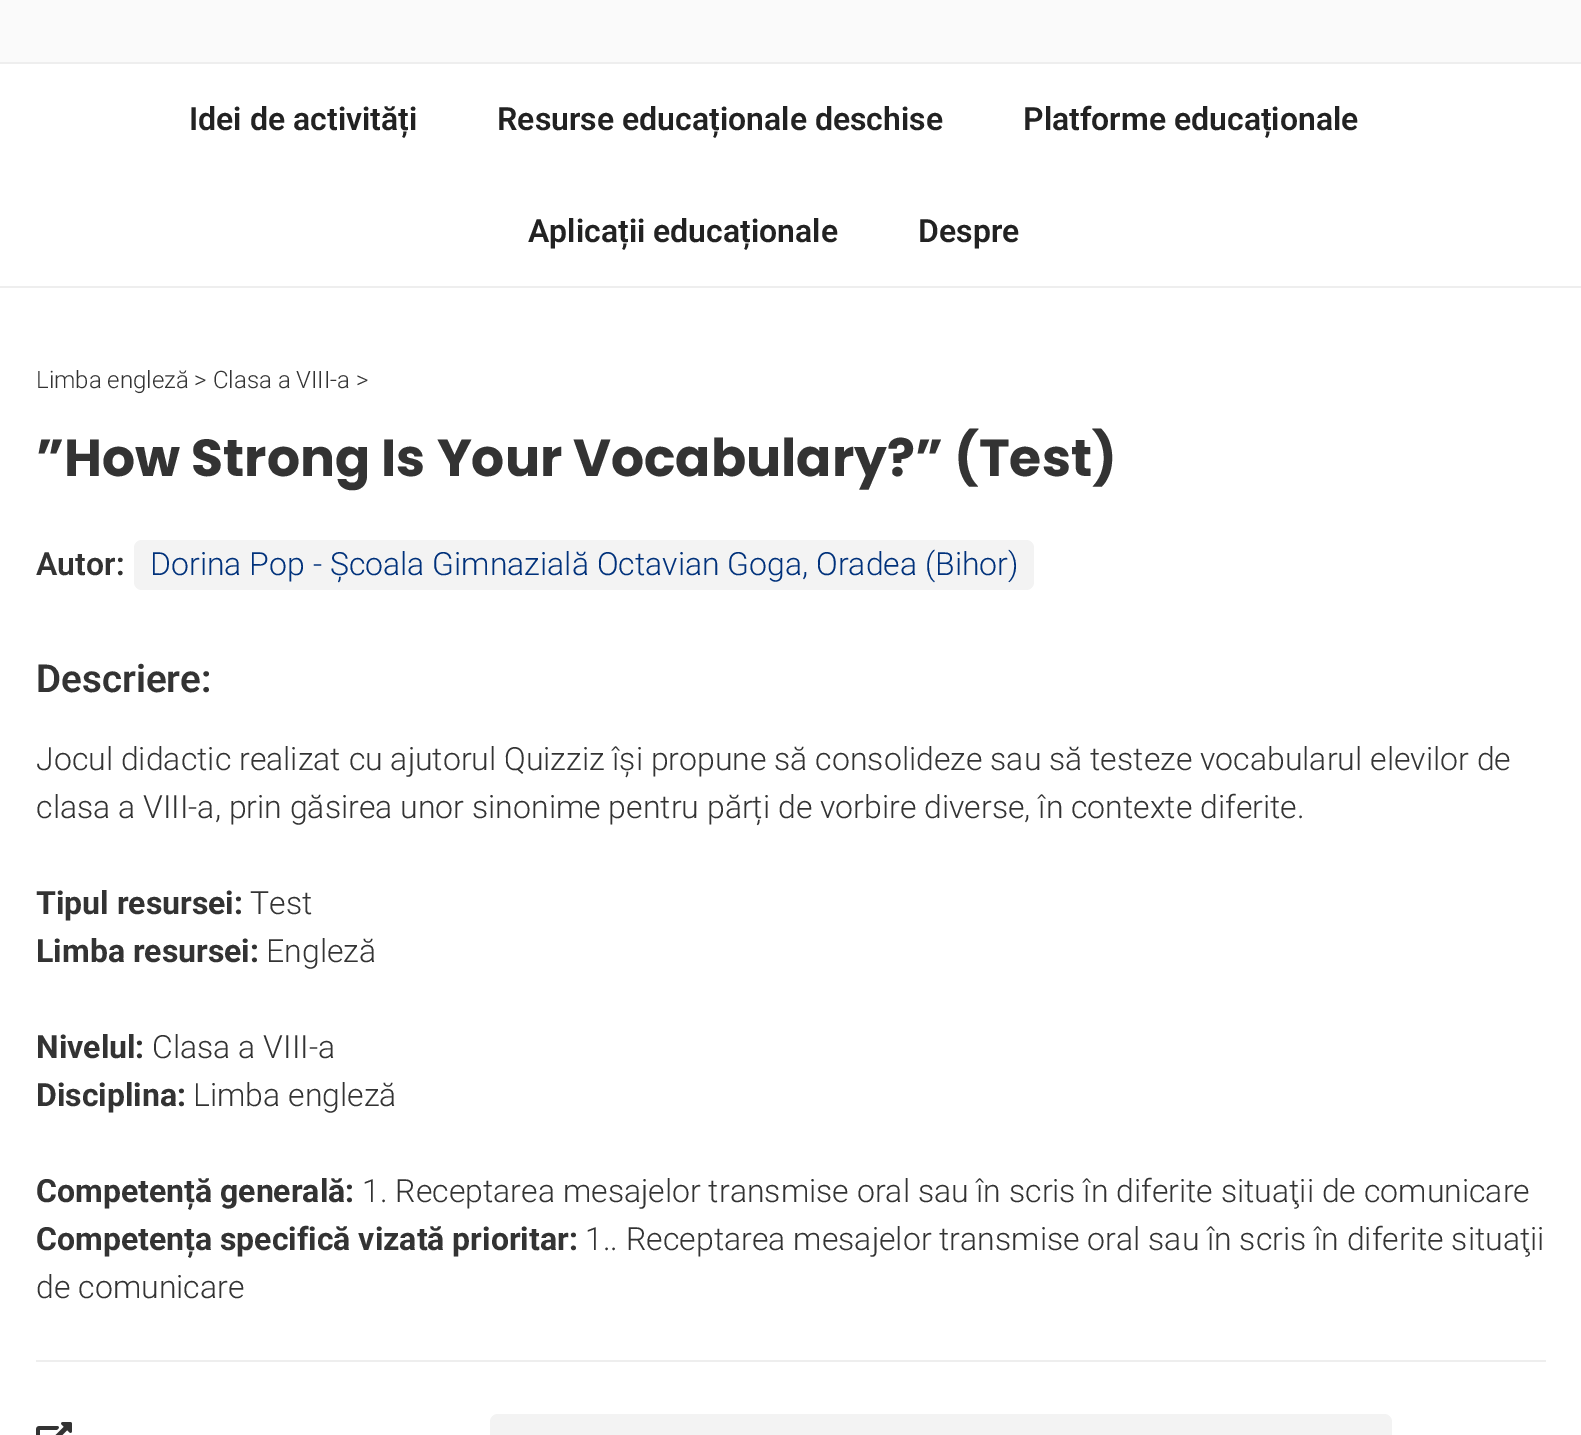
%!PS
<< /PageSize [1581 1435] >> setpagedevice
/rgb { dup -16 bitshift 255 div exch dup -8 bitshift 255 and 255 div exch 255 and 255 div setrgbcolor } def
/font { [ exch dup neg 0 0 3 -1 roll 0 0 ] selectfont } def
/text { moveto show } def
/roundrect { 5 dict begin { /r /h /w /y /x } { exch def } forall
  x r add y moveto x w add y 2 copy h add r arct x w add y h add x 1 index r arct
  x y h add x y r arct x y 2 copy exch w add exch r arct closepath end } def
/picture { 5 dict begin { /h /w /y /x /name } { exch def } forall
  gsave x y translate w h scale
  w h 8 [w 0 0 h 0 0] name (r) file false 3 colorimage grestore end } def
0 1435 translate 1 -1 scale
4 setmiterlimit
/s1 { /Roboto-SemiBold 32 font 16#222222 rgb } def
/s2 { /Roboto-Light 24 font 16#333333 rgb } def
/s3 { /Poppins-Bold 52 font 16#333333 rgb } def
/s4 { /Roboto-SemiBold 32 font 16#333333 rgb } def
/s5 { /Roboto-Light 32 font 16#00317B rgb } def
/s6 { /Roboto-SemiBold 38.5 font 16#333333 rgb } def
/s7 { /Roboto-Light 32 font 16#333333 rgb } def
/s8 { /Roboto-Bold 32 font 16#333333 rgb } def
16#FFFFFF rgb
0 0 1581 1435 rectfill
16#FAFAFA rgb
0 0 1581 62 rectfill
16#EEEEEE rgb
0 62 1581 2 rectfill
0 286 1581 2 rectfill
s1
(Idei de activități) 189 130 text
(Resurse educaționale deschise) 497 130 text
(Platforme educaționale) 1023 130 text
(Aplicații educaționale) 528 242 text
(Despre) 918 242 text
s2
(Limba engleză > Clasa a VIII-a >) 36 388 text
s3
(”How Strong Is Your Vocabulary?” \(Test\)) 36 476 text
s4
(Autor:) 36 575 text
16#F3F3F3 rgb
134 540 900 50 8 roundrect fill
s5
(Dorina Pop - Școala Gimnazială Octavian Goga, Oradea \(Bihor\)) 150 575 text
s6
(Descriere:) 36 692 text
s7
(Jocul didactic realizat cu ajutorul Quizziz își propune să consolideze sau să testeze vocabularul elevilor de) 36 770 text
(clasa a VIII-a, prin găsirea unor sinonime pentru părți de vorbire diverse, în contexte diferite.) 36 818 text
s8
(Tipul resursei:) 36 914 text
s7
(Test) 250 914 text
s8
(Limba resursei:) 36 962 text
s7
(Engleză) 266 962 text
s8
(Nivelul:) 36 1058 text
s7
(Clasa a VIII-a) 152 1058 text
s8
(Disciplina:) 36 1106 text
s7
(Limba engleză) 193 1106 text
s8
(Competență generală:) 36 1202 text
s7
(1. Receptarea mesajelor transmise oral sau în scris în diferite situaţii de comunicare) 362 1202 text
s8
(Competența specifică vizată prioritar:) 36 1250 text
s7
(1.. Receptarea mesajelor transmise oral sau în scris în diferite situaţii) 585 1250 text
(de comunicare) 36 1298 text
16#EEEEEE rgb
36 1360 1510 2 rectfill
(pic1.raw) 36 1422 36 13 picture
16#F3F3F3 rgb
490 1414 902 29 8 roundrect fill
showpage
